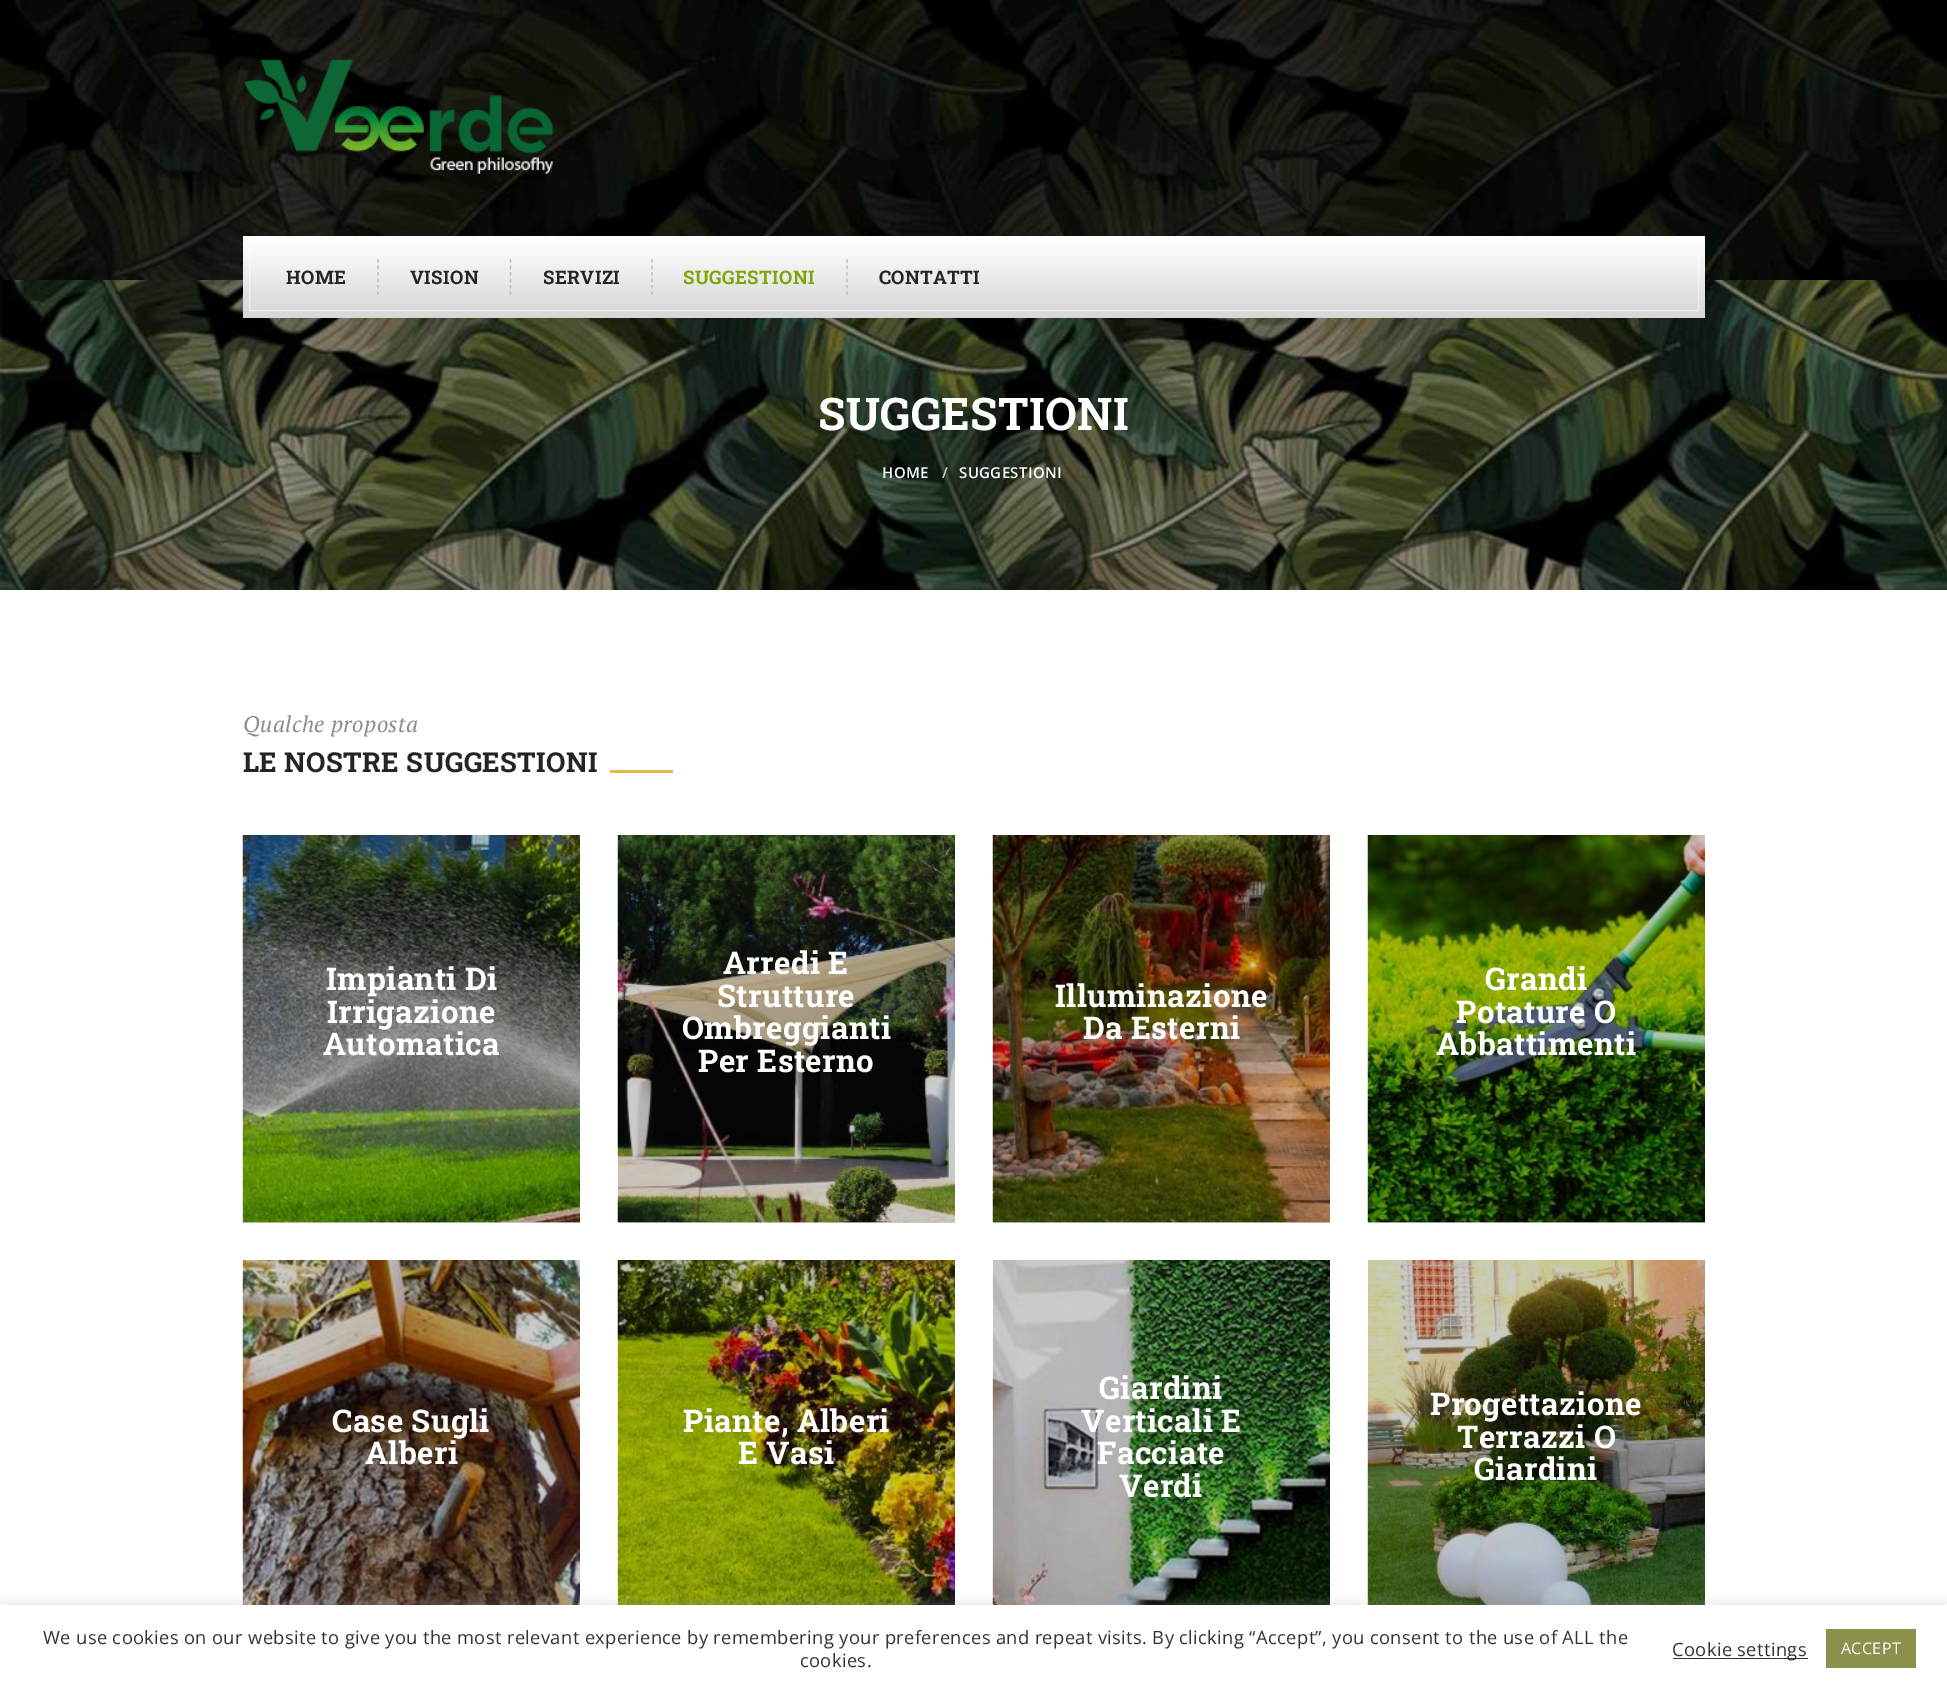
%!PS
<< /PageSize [1947 1691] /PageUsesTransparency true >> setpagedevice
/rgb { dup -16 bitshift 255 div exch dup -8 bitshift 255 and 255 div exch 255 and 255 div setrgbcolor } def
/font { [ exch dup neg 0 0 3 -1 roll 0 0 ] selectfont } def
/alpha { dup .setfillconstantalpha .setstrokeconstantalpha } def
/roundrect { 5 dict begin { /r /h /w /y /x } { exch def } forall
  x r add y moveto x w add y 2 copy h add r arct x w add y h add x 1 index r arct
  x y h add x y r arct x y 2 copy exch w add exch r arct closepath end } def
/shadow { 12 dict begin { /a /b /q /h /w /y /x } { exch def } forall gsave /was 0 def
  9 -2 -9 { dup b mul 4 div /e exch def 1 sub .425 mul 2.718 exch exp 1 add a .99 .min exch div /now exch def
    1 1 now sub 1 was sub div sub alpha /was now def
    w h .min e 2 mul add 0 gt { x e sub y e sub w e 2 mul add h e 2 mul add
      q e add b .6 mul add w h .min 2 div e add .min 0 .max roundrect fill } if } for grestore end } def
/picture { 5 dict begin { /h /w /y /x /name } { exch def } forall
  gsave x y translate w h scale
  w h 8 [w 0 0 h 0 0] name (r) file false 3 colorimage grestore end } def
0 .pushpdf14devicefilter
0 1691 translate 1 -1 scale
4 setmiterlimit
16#FFFFFF rgb
0 0 1947 1691 rectfill
16#CCCCCC rgb
1368 1222 337 1 rectfill
993 1222 337 1 rectfill
618 1222 337 1 rectfill
243 1222 337 1 rectfill
(pic1.raw) 0 0 1947 280 picture
(pic2.raw) 244 59 310 115 picture
(pic3.raw) 0 280 1947 310 picture
gsave 243 236 moveto 1705 236 lineto 1705 318 lineto 243 318 lineto closepath clip newpath
<< /ShadingType 2 /ColorSpace /DeviceRGB /Coords [974 236 974 318] /Extend [true true] /Function << /FunctionType 3 /Domain [0 1] /Functions [<< /FunctionType 2 /Domain [0 1] /C0 [1 1 1] /C1 [0.98 0.98 0.98] /N 1 >> << /FunctionType 2 /Domain [0 1] /C0 [0.98 0.98 0.98] /C1 [0.886 0.886 0.886] /N 1 >> << /FunctionType 2 /Domain [0 1] /C0 [0.886 0.886 0.886] /C1 [0.843 0.843 0.843] /N 1 >>] /Bounds [0.19 0.69] /Encode [0 1 0 1 0 1] >> >> shfill grestore
0.5 alpha
16#FFFFFF rgb
249.5 243.5 1449 67 rectstroke
1 alpha
16#BEBEBE rgb
1.2 setlinewidth
[3.75 2.75] 0 setdash
378 259 moveto 378 295 lineto stroke
/RobotoSlab-Bold 18.75 font
16#242424 rgb
286 284 moveto 0.35 0 (HOME) ashow
16#BEBEBE rgb
510.5 259 moveto 510.5 295 lineto stroke
16#242424 rgb
410 284 moveto 0.35 0 (VISION) ashow
16#BEBEBE rgb
652 259 moveto 652 295 lineto stroke
16#242424 rgb
543 284 moveto 0.35 0 (SERVIZI) ashow
16#BEBEBE rgb
847 259 moveto 847 295 lineto stroke
16#7FA409 rgb
683 284 moveto 0.35 0 (SUGGESTIONI) ashow
16#242424 rgb
879 284 moveto 0.35 0 (CONTATTI) ashow
/RobotoSlab-Bold 45 font
16#FFFFFF rgb
818 430 moveto 0.35 0 (SUGGESTIONI) ashow
/OpenSans-SemiBold 15 font
882 478 moveto 0.35 0 (HOME) ashow
16#CCCCCC rgb
942 478 moveto 0.35 0 (/) ashow
16#FFFFFF rgb
959 478 moveto 0.35 0 (SUGGESTIONI) ashow
/PTSerif-Italic 22.5 font
16#8D8D8D rgb
243 732 moveto 0.35 0 (Qualche proposta) ashow
/RobotoSlab-Bold 27.5 font
16#242424 rgb
243 772 moveto 0.35 0 (LE NOSTRE SUGGESTIONI) ashow
16#E2BA4B rgb
610 770 63 3 rectfill
(pic4.raw) 242 835 338 388 picture
/RobotoSlab-Bold 31.25 font
16#FFFFFF rgb
326 990 moveto 0.35 0 (Impianti Di) ashow
327 1023 moveto 0.35 0 (Irrigazione) ashow
323 1055 moveto 0.35 0 (Automatica) ashow
(pic5.raw) 617 835 338 388 picture
723 974 moveto 0.35 0 (Arredi E) ashow
717 1007 moveto 0.35 0 (Strutture) ashow
682 1039 moveto 0.35 0 (Ombreggianti) ashow
698 1072 moveto 0.35 0 (Per Esterno) ashow
(pic6.raw) 992 835 338 388 picture
1055 1007 moveto 0.35 0 (Illuminazione) ashow
1083 1039 moveto 0.35 0 (Da Esterni) ashow
(pic7.raw) 1367 835 338 388 picture
1485 990 moveto 0.35 0 (Grandi) ashow
1456 1023 moveto 0.35 0 (Potature O) ashow
1436 1055 moveto 0.35 0 (Abbattimenti) ashow
/OpenSans-Regular 18 font
16#213B0E rgb
1529 1094 moveto 0.35 0 (...) ashow
(pic8.raw) 242 1260 338 345 picture
/RobotoSlab-Bold 31.25 font
16#FFFFFF rgb
332 1432 moveto 0.35 0 (Case Sugli) ashow
365 1464 moveto 0.35 0 (Alberi) ashow
/OpenSans-Regular 18 font
16#3D2B20 rgb
409 1503 moveto 0.35 0 (.) ashow
(pic9.raw) 617 1260 338 345 picture
/RobotoSlab-Bold 31.25 font
16#FFFFFF rgb
683 1432 moveto 0.35 0 (Piante, Alberi) ashow
738 1464 moveto 0.35 0 (E Vasi) ashow
(pic10.raw) 992 1260 338 345 picture
1099 1399 moveto 0.35 0 (Giardini) ashow
1081 1432 moveto 0.35 0 (Verticali E) ashow
1097 1464 moveto 0.35 0 (Facciate) ashow
1119 1497 moveto 0.35 0 (Verdi) ashow
(pic11.raw) 1367 1260 338 345 picture
1430 1415 moveto 0.35 0 (Progettazione) ashow
1457 1448 moveto 0.35 0 (Terrazzi O) ashow
1474 1480 moveto 0.35 0 (Giardini) ashow
16#ACABAB rgb
0 1604 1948 86 0 6 0.3 shadow
16#FFFFFF rgb
0 1605 1947 86 rectfill
/OpenSans-Regular 18.33 font
16#333333 rgb
43 1644 moveto 0.35 0 (We use cookies on our website to give you the most relevant experience by remembering your preferences and repeat visits. By clicking “Accept”, you consent to the use of ALL the) ashow
800 1667 moveto 0.35 0 (cookies.) ashow
1673 1658 135 1 rectfill
1672 1656 moveto 0.35 0 (Cookie settings) ashow
16#8B914A rgb
1826 1629 90 39 rectfill
/OpenSans-Regular 16 font
16#FFFFFF rgb
1841 1654 moveto 0.35 0 (ACCEPT) ashow
.poppdf14devicefilter showpage
